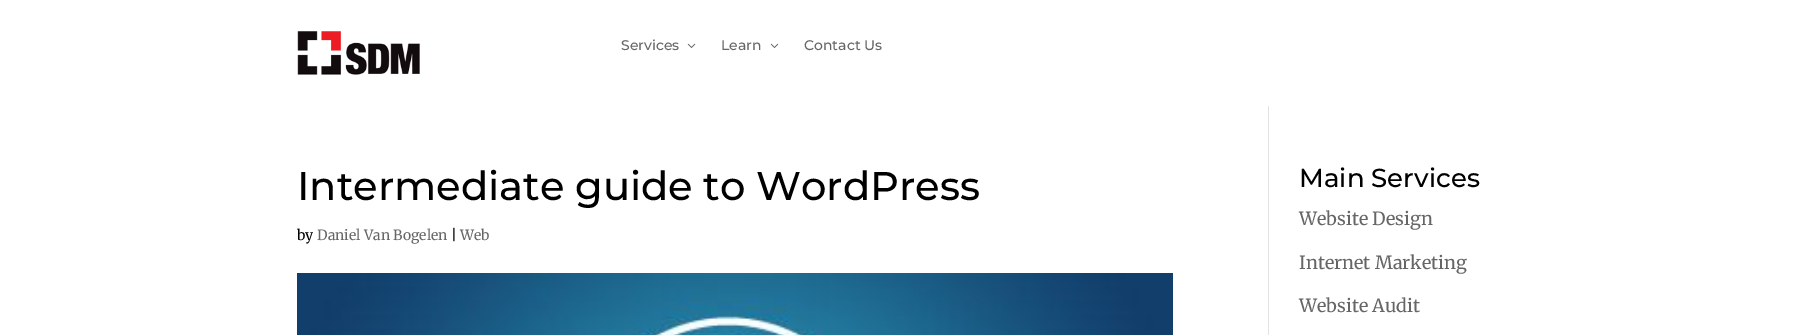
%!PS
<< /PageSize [1794 335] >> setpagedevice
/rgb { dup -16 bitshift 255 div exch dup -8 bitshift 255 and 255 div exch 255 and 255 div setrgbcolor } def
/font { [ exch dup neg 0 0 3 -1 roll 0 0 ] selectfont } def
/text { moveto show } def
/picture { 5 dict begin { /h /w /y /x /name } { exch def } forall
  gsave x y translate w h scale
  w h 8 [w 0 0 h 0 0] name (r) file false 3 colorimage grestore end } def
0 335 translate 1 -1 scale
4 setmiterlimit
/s1 { /Montserrat-Medium 14 font 16#666666 rgb } def
/s2 { /Montserrat-Medium 40 font 16#000000 rgb } def
/s3 { /Merriweather-Regular 14 font 16#000000 rgb } def
/s4 { /Merriweather-Regular 14 font 16#666666 rgb } def
/s5 { /Montserrat-Medium 26 font 16#000000 rgb } def
/s6 { /Merriweather-Regular 18 font 16#666666 rgb } def
16#FFFFFF rgb
0 0 1794 335 rectfill
(pic1.raw) 297 31 123 44 picture
s1
(Services) 621 50 text
(pic2.raw) 687 43 9 5 picture
(Learn) 721 50 text
(pic2.raw) 770 43 9 5 picture
(Contact Us) 804 50 text
16#E2E2E2 rgb
1268 106 1 229 rectfill
s2
(Intermediate guide to WordPress) 297 200 text
s3
(by) 297 240 text
s4
(Daniel Van Bogelen) 317 240 text
s3
(|) 451 240 text
s4
(Web) 460 240 text
(pic3.raw) 297 273 876 62 picture
s5
(Main Services) 1299 187 text
s6
(Website Design) 1299 225 text
(Internet Marketing) 1299 269 text
(Website Audit) 1299 312 text
showpage
